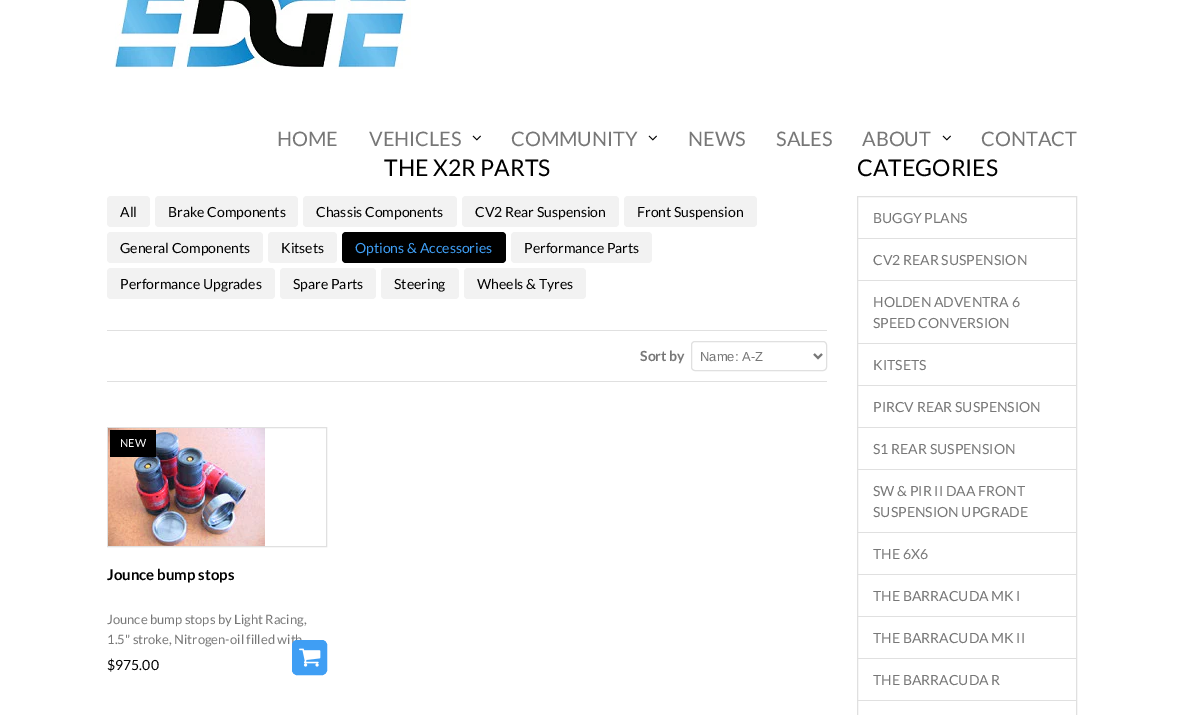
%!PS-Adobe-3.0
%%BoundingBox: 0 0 1184 715
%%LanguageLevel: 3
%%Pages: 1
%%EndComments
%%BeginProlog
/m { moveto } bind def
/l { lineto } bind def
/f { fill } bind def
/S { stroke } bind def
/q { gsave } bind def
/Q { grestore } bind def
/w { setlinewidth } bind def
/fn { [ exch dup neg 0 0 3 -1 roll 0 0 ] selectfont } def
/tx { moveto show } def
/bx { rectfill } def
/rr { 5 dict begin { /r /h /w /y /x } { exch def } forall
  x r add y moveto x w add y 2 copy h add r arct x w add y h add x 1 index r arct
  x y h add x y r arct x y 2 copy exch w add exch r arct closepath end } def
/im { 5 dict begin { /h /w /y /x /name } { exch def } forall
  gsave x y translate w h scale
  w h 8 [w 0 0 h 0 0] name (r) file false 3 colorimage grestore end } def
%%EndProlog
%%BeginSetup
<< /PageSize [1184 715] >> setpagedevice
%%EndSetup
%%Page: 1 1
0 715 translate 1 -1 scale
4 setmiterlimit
1 setgray
0 0 1184 715 bx
(image0.raw) 114 0 297 69 im
/Lato-Regular 20 fn
0.467 setgray
(HOME) 277 146 tx
(VEHICLES) 369 146 tx
(image1.raw) 472 135 9 6 im
(COMMUNITY) 511 146 tx
(image1.raw) 648 135 9 6 im
(NEWS) 688 146 tx
(SALES) 776 146 tx
(ABOUT) 862 146 tx
(image1.raw) 942 135 9 6 im
(CONTACT) 981 146 tx
/Lato-Regular 23 fn
0 setgray
(THE X2R PARTS) 384 176 tx
0.949 setgray
107 196 43 31 4 rr f
/Lato-Regular 14 fn
0 setgray
(All) 120 217 tx
0.949 setgray
155 196 143 31 4 rr f
0 setgray
(Brake Components) 168 217 tx
0.949 setgray
303 196 154 31 4 rr f
0 setgray
(Chassis Components) 316 217 tx
0.949 setgray
462 196 157 31 4 rr f
0 setgray
(CV2 Rear Suspension) 475 217 tx
0.949 setgray
624 196 133 31 4 rr f
0 setgray
(Front Suspension) 637 217 tx
0.949 setgray
107 232 156 31 4 rr f
0 setgray
(General Components) 120 253 tx
0.949 setgray
268 232 69 31 4 rr f
0 setgray
(Kitsets) 281 253 tx
342 232 164 31 4 rr f
0.247 0.62 0.957 setrgbcolor
(Options & Accessories) 355 253 tx
0.949 setgray
511 232 141 31 4 rr f
0 setgray
(Performance Parts) 524 253 tx
0.949 setgray
107 268 168 31 4 rr f
0 setgray
(Performance Upgrades) 120 289 tx
0.949 setgray
280 268 96 31 4 rr f
0 setgray
(Spare Parts) 293 289 tx
0.949 setgray
381 268 78 31 4 rr f
0 setgray
(Steering) 394 289 tx
0.949 setgray
464 268 122 31 4 rr f
0 setgray
(Wheels & Tyres) 477 289 tx
0.878 setgray
107 330 720 1 bx
107 381 720 1 bx
/Lato-Bold 14 fn
0.467 setgray
(Sort by) 640 361 tx
0.878 setgray
691.5 341.5 135 29 3.5 rr S
0.467 setgray
2 w
814 354 m 818 358 l 822 354 l S
/LiberationSans-Regular 13 fn
(Name: A-Z) 700 361 tx
0.878 setgray
1 w
107.5 427.5 219 119 rectstroke
(image2.raw) 108 428 157 118 im
0 setgray
110 430 46 27 bx
/Lato-Regular 11 fn
1 setgray
(NEW) 120 447 tx
/Lato-Bold 15 fn
0 setgray
(Jounce bump stops) 107 580 tx
/Lato-Regular 13 fn
0.467 setgray
(Jounce bump stops by Light Racing,) 107 624 tx
(1.5" stroke, Nitrogen-oil filled with) 107 644 tx
/Lato-Regular 14 fn
0 setgray
($975.00) 107 670 tx
0.247 0.62 0.957 setrgbcolor
292.5 640.5 34 34 4.5 rr q f Q
S
(image3.raw) 299 648 22 19 im
/Lato-Regular 23 fn
0 setgray
(CATEGORIES) 857 176 tx
0.878 setgray
857.5 196.5 219 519 rectstroke
/Lato-Regular 14 fn
0.467 setgray
(BUGGY PLANS) 873 223 tx
0.878 setgray
858 238 218 1 bx
0.467 setgray
(CV2 REAR SUSPENSION) 873 265 tx
0.878 setgray
858 280 218 1 bx
0.467 setgray
(HOLDEN ADVENTRA 6) 873 307 tx
(SPEED CONVERSION) 873 328 tx
0.878 setgray
858 343 218 1 bx
0.467 setgray
(KITSETS) 873 370 tx
0.878 setgray
858 385 218 1 bx
0.467 setgray
(PIRCV REAR SUSPENSION) 873 412 tx
0.878 setgray
858 427 218 1 bx
0.467 setgray
(S1 REAR SUSPENSION) 873 454 tx
0.878 setgray
858 469 218 1 bx
0.467 setgray
(SW & PIR II DAA FRONT) 873 496 tx
(SUSPENSION UPGRADE) 873 517 tx
0.878 setgray
858 532 218 1 bx
0.467 setgray
(THE 6X6) 873 559 tx
0.878 setgray
858 574 218 1 bx
0.467 setgray
(THE BARRACUDA MK I) 873 601 tx
0.878 setgray
858 616 218 1 bx
0.467 setgray
(THE BARRACUDA MK II) 873 643 tx
0.878 setgray
858 658 218 1 bx
0.467 setgray
(THE BARRACUDA R) 873 685 tx
0.878 setgray
858 700 218 1 bx
showpage
%%EOF
